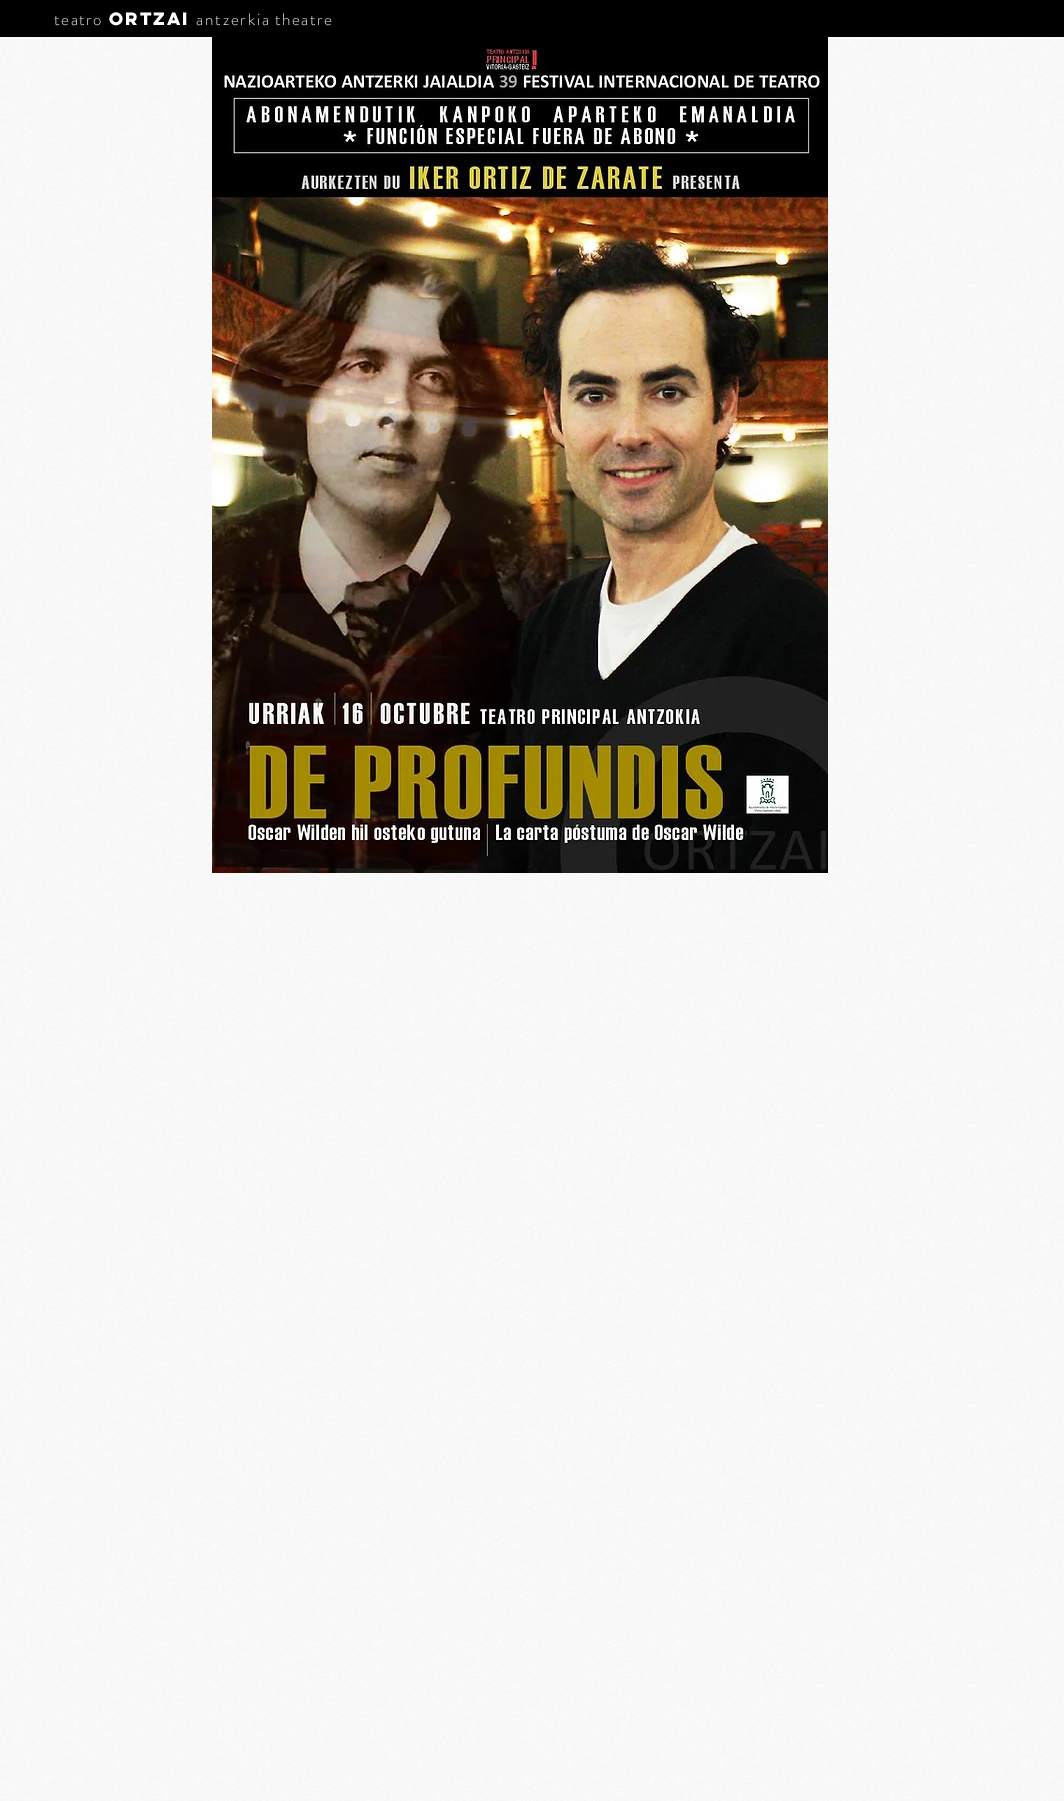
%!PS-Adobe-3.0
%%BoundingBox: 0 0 1064 1801
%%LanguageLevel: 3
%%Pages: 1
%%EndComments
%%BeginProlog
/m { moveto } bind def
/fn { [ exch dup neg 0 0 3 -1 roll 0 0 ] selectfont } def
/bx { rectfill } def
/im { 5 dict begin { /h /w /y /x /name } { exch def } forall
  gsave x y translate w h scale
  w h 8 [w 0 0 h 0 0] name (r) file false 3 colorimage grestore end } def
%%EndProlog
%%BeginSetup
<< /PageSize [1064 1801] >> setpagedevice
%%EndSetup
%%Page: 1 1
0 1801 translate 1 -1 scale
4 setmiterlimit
1 setgray
0 0 1064 1801 bx
0 setgray
0 0 1064 37 bx
/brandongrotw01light-Light 17 fn
0.91 0.902 0.902 setrgbcolor
54 25 m 1.5 0 (teatro) ashow
/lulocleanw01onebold-Bold 16 fn
1 setgray
109 25 m -1.5 0 (ORTZAI) ashow
/brandongrotw01light-Light 17 fn
0.91 0.902 0.902 setrgbcolor
196 25 m 1.75 0 (antzerkia) ashow
275 25 m 1.5 0 (theatre) ashow
(image1.raw) 0 37 1064 1764 im
(image0.raw) 212 37 616 836 im
showpage
%%EOF
